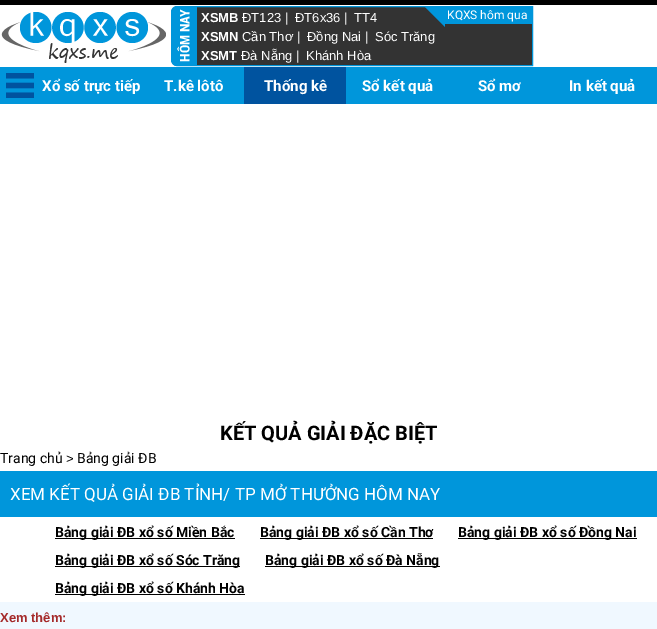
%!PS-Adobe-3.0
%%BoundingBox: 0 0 657 629
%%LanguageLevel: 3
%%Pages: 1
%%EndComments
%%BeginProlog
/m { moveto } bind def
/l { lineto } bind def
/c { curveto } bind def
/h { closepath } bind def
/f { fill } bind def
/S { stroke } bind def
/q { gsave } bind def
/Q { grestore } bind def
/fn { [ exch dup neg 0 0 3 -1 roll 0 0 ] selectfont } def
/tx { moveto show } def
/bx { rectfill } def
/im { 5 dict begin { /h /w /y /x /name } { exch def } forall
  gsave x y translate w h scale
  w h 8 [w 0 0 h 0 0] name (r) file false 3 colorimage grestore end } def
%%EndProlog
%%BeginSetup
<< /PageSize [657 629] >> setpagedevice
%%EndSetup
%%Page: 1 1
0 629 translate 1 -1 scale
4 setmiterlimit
0 setgray
0 0 657 629 bx
1 setgray
0 5 657 597 bx
(image0.raw) 1 12 165 51 im
0.2 setgray
177 6.5 m 532.5 6.5 l 532.5 65.5 l 177 65.5 l 174 65.5 171.5 63 171.5 60 c 171.5 12 l 171.5 9 174 6.5 177 6.5 c h q f Q
0 0.588 0.859 setrgbcolor
S
177 7 m 197 7 l 197 66 l 177 66 l 174 66 172 64 172 61 c 172 12 l 172 9 174 7 177 7 c h f
(image1.raw) 177 9 13 53 im
/LiberationSans-Bold 13 fn
1 setgray
(XSMB) 201 22 tx
/LiberationSans-Regular 13 fn
(ĐT123 |) 242 22 tx
(ĐT6x36 |) 295 22 tx
(TT4) 354 22 tx
0 0.588 0.859 setrgbcolor
445 7 87 17 bx
425 7 m 445 7 l 445 27 l h f
/Roboto-Regular 12 fn
1 setgray
(KQXS hôm qua) 447 19 tx
/LiberationSans-Bold 13 fn
(XSMN) 201 41 tx
/LiberationSans-Regular 13 fn
(Cần Thơ |) 242 41 tx
(Đồng Nai |) 307 41 tx
(Sóc Trăng) 375 41 tx
/LiberationSans-Bold 13 fn
(XSMT) 201 60 tx
/LiberationSans-Regular 13 fn
(Đà Nẵng |) 241 60 tx
(Khánh Hòa) 306 60 tx
0 0.588 0.859 setrgbcolor
0 67 657 37 bx
(image2.raw) 6 73 28 25 im
/Roboto-Bold 15 fn
1 setgray
(Xổ số trực tiếp) 42 91 tx
(T.kê lôtô) 164 91 tx
0 0.325 0.624 setrgbcolor
244 67 102 37 bx
1 setgray
(Thống kê) 264 91 tx
(Sổ kết quả) 362 91 tx
(Sổ mơ) 478 91 tx
(In kết quả) 569 91 tx
/Roboto-Bold 20 fn
0 setgray
(KẾT QUẢ GIẢI ĐẶC BIỆT) 220 440 tx
/Roboto-Regular 14 fn
(Trang chủ) 0 463 tx
/LiberationSans-Regular 13 fn
(>) 66 463 tx
/Roboto-Regular 14 fn
(Bảng giải ĐB) 77 463 tx
0 0.588 0.859 setrgbcolor
0 471 657 46 bx
/Roboto-Regular 17 fn
1 setgray
(XEM KẾT QUẢ GIẢI ĐB TỈNH/ TP MỞ THƯỞNG HÔM NAY) 10 500 tx
0 setgray
55 538 180 1 bx
/Roboto-Bold 14 fn
(Bảng giải ĐB xổ số Miền Bắc) 55 537 tx
260 538 173 1 bx
(Bảng giải ĐB xổ số Cần Thơ) 260 537 tx
458 538 179 1 bx
(Bảng giải ĐB xổ số Đồng Nai) 458 537 tx
55 566 185 1 bx
(Bảng giải ĐB xổ số Sóc Trăng) 55 565 tx
265 566 175 1 bx
(Bảng giải ĐB xổ số Đà Nẵng) 265 565 tx
55 594 190 1 bx
(Bảng giải ĐB xổ số Khánh Hòa) 55 593 tx
0.941 0.973 1 setrgbcolor
0 602 657 27 bx
/LiberationSans-Bold 13 fn
0.647 0.165 0.165 setrgbcolor
(Xem thêm:) 0 622 tx
showpage
%%EOF
